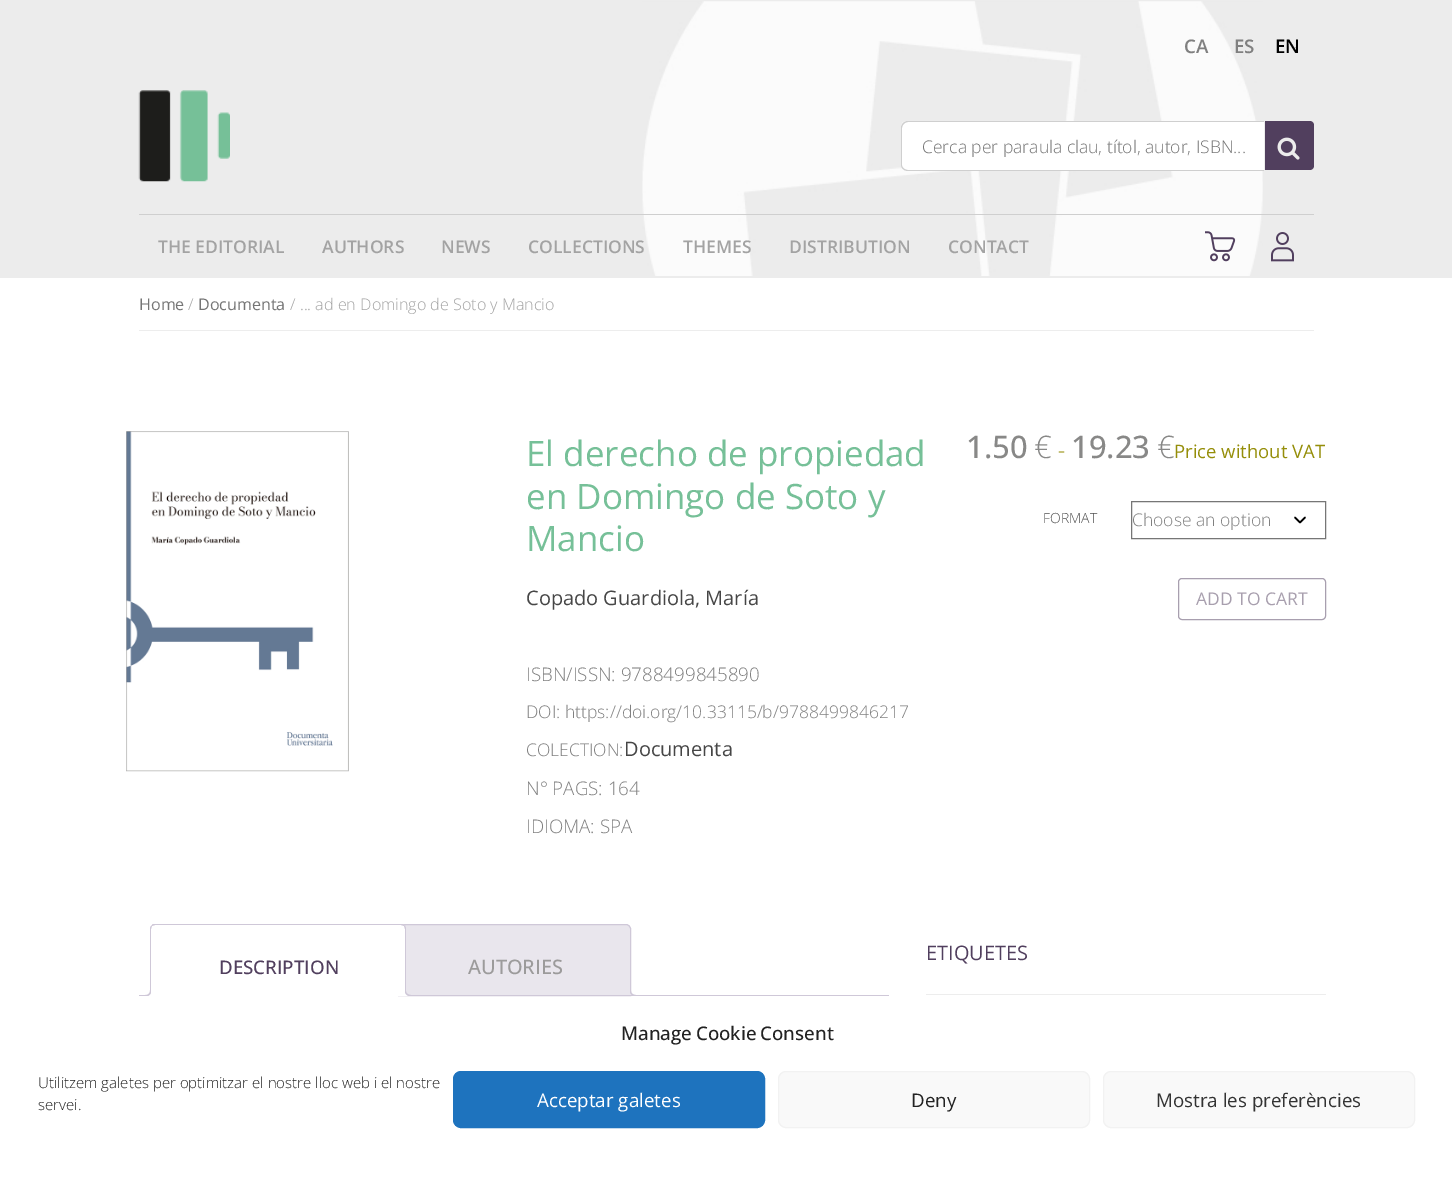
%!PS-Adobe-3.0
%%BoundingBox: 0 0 1452 1183
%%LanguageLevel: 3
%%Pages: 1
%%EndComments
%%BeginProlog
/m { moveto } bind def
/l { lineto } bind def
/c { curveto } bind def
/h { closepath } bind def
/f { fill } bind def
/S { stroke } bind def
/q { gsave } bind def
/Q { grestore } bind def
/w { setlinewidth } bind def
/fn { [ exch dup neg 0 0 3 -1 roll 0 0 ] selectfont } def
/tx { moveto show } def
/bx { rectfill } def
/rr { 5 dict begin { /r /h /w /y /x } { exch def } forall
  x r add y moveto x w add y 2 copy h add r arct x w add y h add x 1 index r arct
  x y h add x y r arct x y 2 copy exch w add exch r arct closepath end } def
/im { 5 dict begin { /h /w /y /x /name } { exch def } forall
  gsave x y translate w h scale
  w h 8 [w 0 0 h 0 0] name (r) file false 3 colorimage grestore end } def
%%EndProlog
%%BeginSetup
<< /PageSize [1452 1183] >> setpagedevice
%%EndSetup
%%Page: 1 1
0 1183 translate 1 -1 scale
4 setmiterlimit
1 setgray
0 0 1452 1183 bx
0.925 setgray
0 0 1452 278 bx
(image0.raw) 642 1 621 275 im
/OpenSans-SemiBold 18.75 fn
0.502 setgray
(CA) 1184 53 tx
(ES) 1234 53 tx
0 setgray
(EN) 1275 53 tx
(image1.raw) 138 90 92 92 im
1 setgray
907 121 m 1264 121 l 1264 171 l 907 171 l 903.5 171 901 168.5 901 165 c 901 127 l 901 123.5 903.5 121 907 121 c h f
0.812 setgray
908 121 m 1264 121 l 1264 171 l 908 171 l 904 171 901 168 901 165 c 901 128 l 901 124 904 121 908 121 c h 908 122 m 1264 122 l 1264 170 l 908 170 l 905 170 902 168 902 165 c 902 128 l 902 125 905 122 908 122 c h eofill
/OpenSans-Light 17.5 fn
0.459 setgray
(Cerca per paraula clau, títol, autor, ISBN...) 922 153 tx
0.318 0.247 0.369 setrgbcolor
1265 121 m 1310 121 l 1312 121 1314 123 1314 125 c 1314 166 l 1314 168 1312 170 1310 170 c 1265 170 l h f
(image2.raw) 1277 137 23 23 im
0.812 setgray
139 214 1175 1 bx
/OpenSans-SemiBold 17.5 fn
0.639 setgray
(THE EDITORIAL) 158 253 tx
(AUTHORS) 322 253 tx
(NEWS) 441 253 tx
(COLLECTIONS) 528 253 tx
(THEMES) 683 253 tx
(DISTRIBUTION) 789 253 tx
(CONTACT) 948 253 tx
(image3.raw) 1205 231 31 31 im
(image4.raw) 1271 232 23 30 im
0.929 setgray
139 330 1175 1 bx
/OpenSans-Regular 16.1 fn
0.459 setgray
(Home) 139 310 tx
/OpenSans-Light 16.1 fn
0.639 setgray
(/) 188 310 tx
/OpenSans-Regular 16.1 fn
0.459 setgray
(Documenta) 198 310 tx
/OpenSans-Light 16.1 fn
0.639 setgray
(/ ... ad en Domingo de Soto y Mancio) 290 310 tx
(image5.raw) 126 431 223 341 im
/OpenSans-Regular 35 fn
0.463 0.753 0.596 setrgbcolor
(El derecho de propiedad) 526 466 tx
(en Domingo de Soto y) 526 509 tx
(Mancio) 526 551 tx
/OpenSans-Regular 20 fn
0.275 setgray
(Copado Guardiola, María) 526 605 tx
/OpenSans-Light 18.75 fn
0.502 setgray
(ISBN/ISSN: 9788499845890) 526 681 tx
/OpenSans-Light 17.5 fn
(DOI: https://doi.org/10.33115/b/9788499846217) 526 718 tx
(COLECTION:) 526 756 tx
/OpenSans-Regular 20 fn
0.275 setgray
(Documenta) 624 756 tx
/OpenSans-Light 18.75 fn
0.502 setgray
(N° PAGS: 164) 526 795 tx
(IDIOMA: SPA) 526 833 tx
/OpenSans-Medium 31 fn
0.533 0.533 0.529 setrgbcolor
(1.50) 966 458 tx
/OpenSans-Light 31 fn
(€) 1034 458 tx
/OpenSans-Light 22 fn
0.584 0.557 0.035 setrgbcolor
(-) 1058 458 tx
/OpenSans-Medium 31 fn
0.533 0.533 0.529 setrgbcolor
(19.23) 1071 458 tx
/OpenSans-Light 31 fn
(€) 1157 458 tx
/OpenSans-Regular 18.5 fn
0.584 0.557 0.035 setrgbcolor
(Price without VAT) 1174 458 tx
/OpenSans-Light 14 fn
0.314 setgray
(FORMAT) 1043 523 tx
0 setgray
1.7 w
1 setlinecap
1 setlinejoin
1295 517.5 m 1300 522.5 l 1305 517.5 l S
0.463 setgray
1 w
0 setlinecap
0 setlinejoin
1131.5 501.5 194 37 rectstroke
/OpenSans-Light 17.5 fn
0.502 setgray
(Choose an option) 1132 526 tx
0.659 0.624 0.686 setrgbcolor
1178.5 578.5 147 41 3.5 rr S
/OpenSans-Regular 17.5 fn
0.659 0.624 0.682 setrgbcolor
(ADD TO CART) 1196 605 tx
0.929 setgray
926 994 400 1 bx
/OpenSans-Regular 20 fn
0.318 0.247 0.369 setrgbcolor
(ETIQUETES) 926 960 tx
0.914 0.902 0.929 setrgbcolor
403 924.5 m 626 924.5 l 628.5 924.5 630.5 926.5 630.5 929 c 630.5 995.5 l 398.5 995.5 l 398.5 929 l 398.5 926.5 400.5 924.5 403 924.5 c h q f Q
0.812 0.784 0.847 setrgbcolor
S
q
139 924 750 72 rectclip
0.914 0.902 0.929 setrgbcolor
628 993 m 628 997 630 999 634 999 c 634 996 l 632.5 996 631 994.5 630.5 993 c h f
Q
630 990 m 636 990 l 636 996 l 633 996 630 995 630 991 c h 631 990 m 636 990 l 636 995 l 634 995 631 994 631 991 c h eofill
139 995 750 1 bx
1 setgray
155 924 m 401 924 l 404 924 406 926 406 929 c 406 996 l 150 996 l 150 929 l 150 926 152 924 155 924 c h f
0.812 0.784 0.847 setrgbcolor
155 924 m 154 924 152 924 152 925 c 152 926 l 155 925 l 401 925 l 404 926 l 405 925 l 404 924 402 924 401 924 c h f
406 996 m 406 928 l 405 925 l 404 926 l 405 929 l 405 995 l h f
1 setgray
406 996 m 405 995 l 151 995 l 150 996 l h f
0.812 0.784 0.847 setrgbcolor
150 929 m 150 996 l 151 995 l 151 929 l 152 926 l 152 925 l 151 926 150 927 150 929 c h f
/OpenSans-Medium 18.75 fn
0.318 0.247 0.369 setrgbcolor
(DESCRIPTION) 219 974 tx
q
139 924 750 72 rectclip
1 setgray
148 996 m 148 999 l 152 999 154 997 154 993 c 151 993 l 150.5 994.5 149.5 995.5 148 996 c h f
Q
0.812 0.784 0.847 setrgbcolor
145 990 m 151 990 l 151 994.5 149.5 996 145 996 c h 145 990 m 150 990 l 150 993.5 148.5 995 145 995 c h eofill
q
139 924 750 72 rectclip
1 setgray
403 993 m 403 997 405 999 409 999 c 409 996 l 407.5 996 406 994.5 405.5 993 c h f
Q
405 990 m 411 990 l 411 996 l 408 996 405 995 405 991 c h 406 990 m 411 990 l 411 995 l 409 995 406 994 406 991 c h eofill
/OpenSans-Medium 20 fn
0.612 0.608 0.608 setrgbcolor
(AUTORIES) 468 974 tx
/OpenSans-Medium 18.75 fn
0.133 setgray
621 1040 m -1 0 32 (Manage Cookie Consent) widthshow
/OpenSans-Light 15 fn
(Utilitzem galetes per optimitzar el nostre lloc web i el nostre) 38 1088 tx
(servei.) 38 1110 tx
0.118 0.451 0.745 setrgbcolor
453.5 1071.5 311 56 7.5 rr q f Q
S
/OpenSans-Regular 18.75 fn
1 setgray
(Acceptar galetes) 537 1107 tx
0.976 setgray
778.5 1071.5 311 56 7.5 rr q f Q
0.949 setgray
S
0.133 setgray
(Deny) 911 1107 tx
0.976 setgray
1103.5 1071.5 311 56 7.5 rr q f Q
0.949 setgray
S
0.2 setgray
(Mostra les preferències) 1156 1107 tx
showpage
%%EOF
